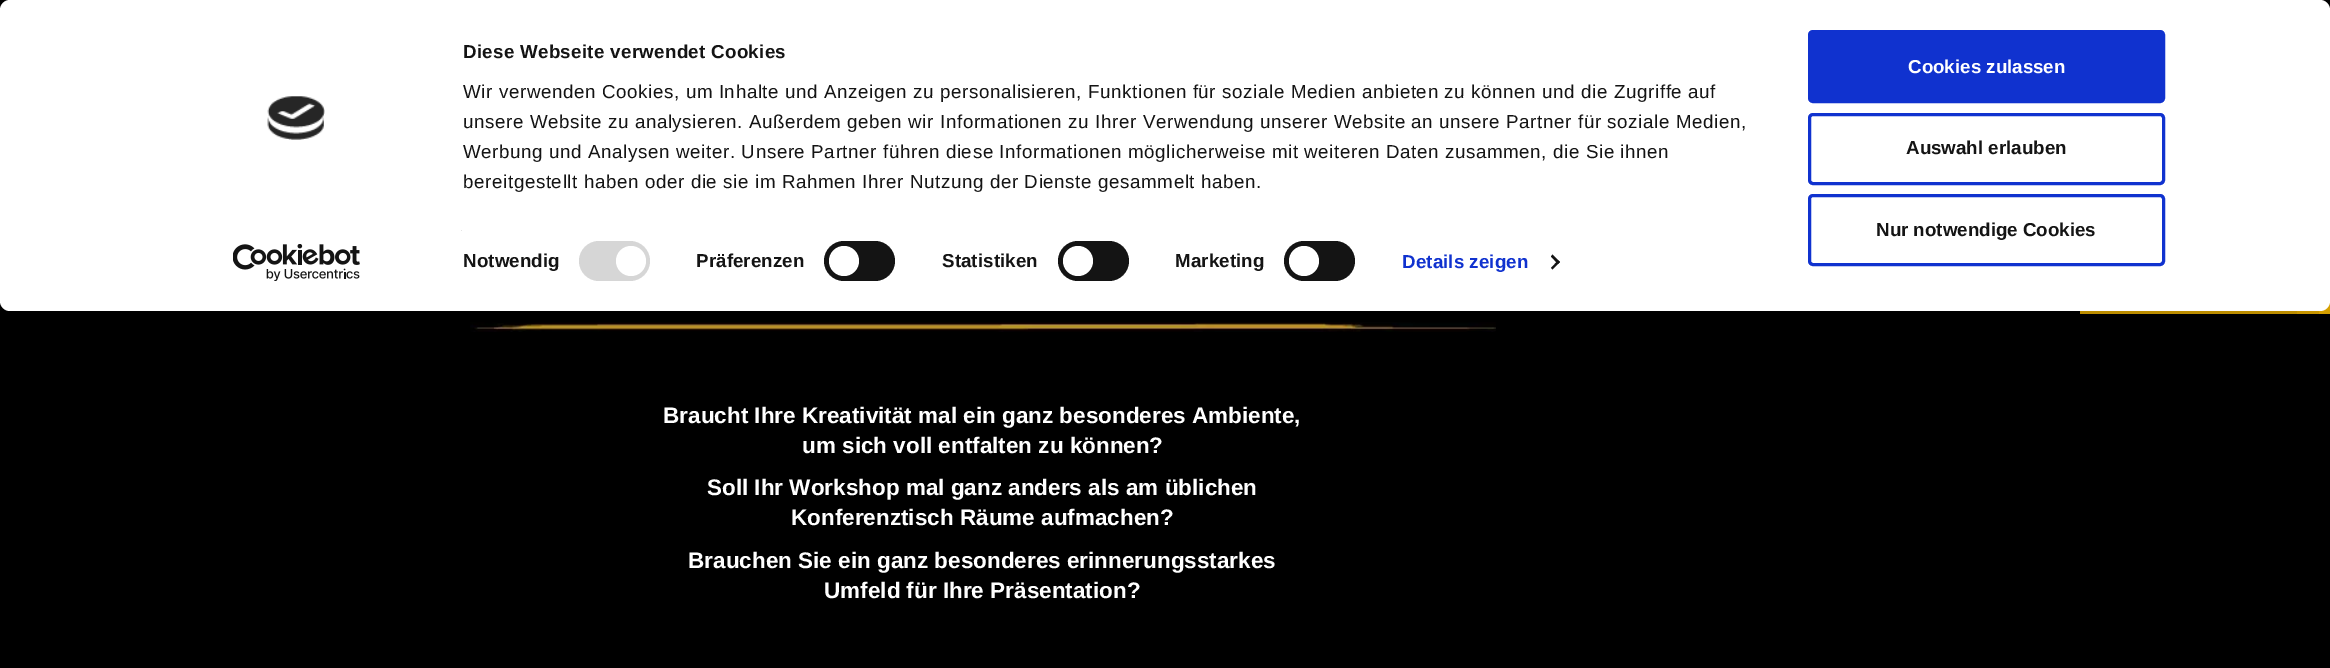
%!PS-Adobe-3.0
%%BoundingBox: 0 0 2330 668
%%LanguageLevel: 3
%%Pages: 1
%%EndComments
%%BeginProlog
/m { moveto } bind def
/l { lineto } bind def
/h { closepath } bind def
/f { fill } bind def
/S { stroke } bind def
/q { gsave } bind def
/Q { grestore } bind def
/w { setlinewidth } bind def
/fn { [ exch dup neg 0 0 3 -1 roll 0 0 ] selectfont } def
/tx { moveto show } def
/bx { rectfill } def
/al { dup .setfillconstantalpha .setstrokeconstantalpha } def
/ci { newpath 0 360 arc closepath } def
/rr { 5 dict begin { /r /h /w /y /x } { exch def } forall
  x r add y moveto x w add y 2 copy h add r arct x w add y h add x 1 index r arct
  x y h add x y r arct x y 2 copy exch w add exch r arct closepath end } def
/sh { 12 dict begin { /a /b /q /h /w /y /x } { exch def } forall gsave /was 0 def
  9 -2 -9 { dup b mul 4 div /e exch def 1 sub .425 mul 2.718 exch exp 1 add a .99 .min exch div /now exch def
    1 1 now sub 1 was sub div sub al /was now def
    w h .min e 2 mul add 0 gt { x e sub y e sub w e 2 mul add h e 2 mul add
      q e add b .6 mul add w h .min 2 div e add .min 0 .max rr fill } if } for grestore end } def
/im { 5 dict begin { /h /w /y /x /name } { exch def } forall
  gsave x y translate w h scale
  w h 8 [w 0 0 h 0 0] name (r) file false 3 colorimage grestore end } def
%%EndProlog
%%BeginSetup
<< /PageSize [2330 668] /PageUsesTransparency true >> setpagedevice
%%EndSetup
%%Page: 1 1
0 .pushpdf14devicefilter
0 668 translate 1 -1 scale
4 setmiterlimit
0 setgray
0 0 2330 668 bx
0.984 0.729 0 setrgbcolor
2080 301 250 13 bx
(image2.raw) 470 322 1026 10 im
0 setgray
0 38 2330 311 10 44 0.3 sh
1 setgray
0 0 2330 311 10 rr f
(image0.raw) 267 96 58 44 im
(image1.raw) 233 244 127 37 im
/LiberationSans-Bold 18.75 fn
0.078 setgray
463 58 m 0.3 0 (Diese Webseite verwendet Cookies) ashow
/LiberationSans-Regular 18.75 fn
463 98 m 0.62 0 (Wir verwenden Cookies, um Inhalte und Anzeigen zu personalisieren, Funktionen für soziale Medien anbieten zu können und die Zugriffe auf) ashow
463 128 m 0.62 0 (unsere Website zu analysieren. Außerdem geben wir Informationen zu Ihrer Verwendung unserer Website an unsere Partner für soziale Medien,) ashow
463 158 m 0.62 0 (Werbung und Analysen weiter. Unsere Partner führen diese Informationen möglicherweise mit weiteren Daten zusammen, die Sie ihnen) ashow
463 188 m 0.62 0 (bereitgestellt haben oder die sie im Rahmen Ihrer Nutzung der Dienste gesammelt haben.) ashow
0.898 setgray
461 230 1 1 bx
/LiberationSans-Bold 18.75 fn
0.078 setgray
463 267 m 0.1 0 (Notwendig) ashow
0.839 setgray
579 241 71 40 20 rr f
1 setgray
631 261 15 ci f
0.078 setgray
696 267 m 0.1 0 (Präferenzen) ashow
824 241 71 40 20 rr f
1 setgray
844 261 15 ci f
0.078 setgray
942 267 m 0.1 0 (Statistiken) ashow
1058 241 71 40 20 rr f
1 setgray
1078 261 15 ci f
0.078 setgray
1175 267 m 0.1 0 (Marketing) ashow
1284 241 71 40 20 rr f
1 setgray
1304 261 15 ci f
0.063 0.196 0.812 setrgbcolor
1402 268 m 0.1 0 (Details zeigen) ashow
0.078 setgray
1552.5 254.5 m 1560 262 l 1558 264 l 1551 256.5 l h f
1558 260.5 m 1560 262 l 1552.5 269.5 l 1551 268 l h f
0.063 0.196 0.812 setrgbcolor
1809.5 31.5 354 70 3.5 rr q f Q
3 w
S
1 setgray
(Cookies zulassen) 1908 73 tx
0.063 0.196 0.812 setrgbcolor
1809.5 114.5 354 69 3.5 rr S
0.078 setgray
(Auswahl erlauben) 1906 154 tx
0.063 0.196 0.812 setrgbcolor
1809.5 195.5 354 69 3.5 rr S
0.078 setgray
(Nur notwendige Cookies) 1876 236 tx
/LiberationSans-Bold 22.5 fn
1 setgray
(Braucht Ihre Kreativität mal ein ganz besonderes Ambiente,) 663 423 tx
(um sich voll entfalten zu können?) 802 453 tx
(Soll Ihr Workshop mal ganz anders als am üblichen) 707 495 tx
(Konferenztisch Räume aufmachen?) 791 525 tx
(Brauchen Sie ein ganz besonderes erinnerungsstarkes) 688 568 tx
(Umfeld für Ihre Präsentation?) 824 598 tx
.poppdf14devicefilter showpage
%%EOF
